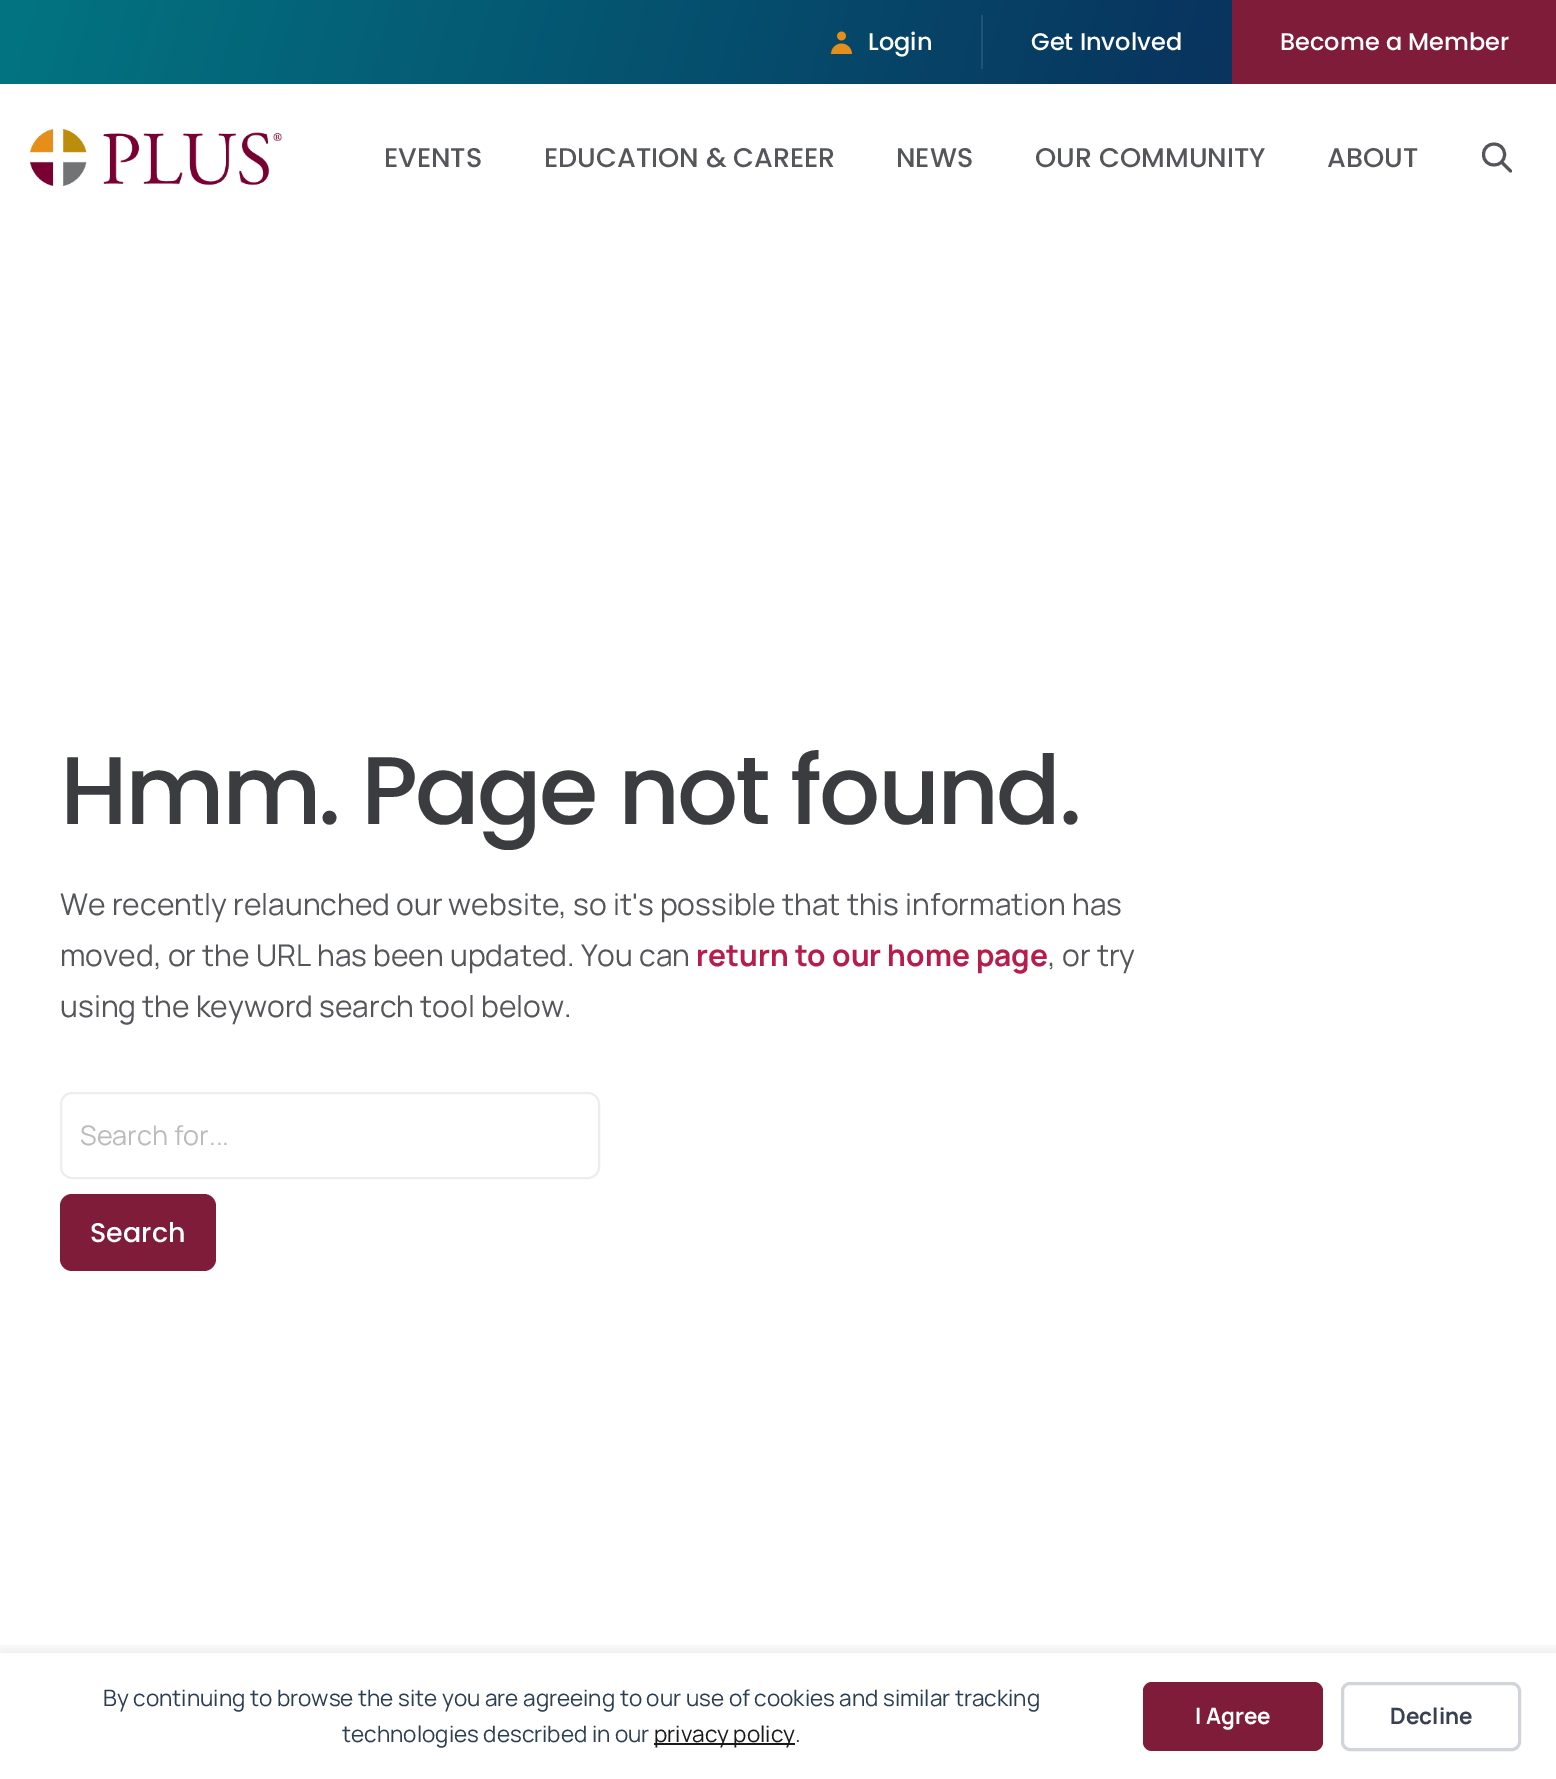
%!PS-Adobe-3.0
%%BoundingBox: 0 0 1556 1779
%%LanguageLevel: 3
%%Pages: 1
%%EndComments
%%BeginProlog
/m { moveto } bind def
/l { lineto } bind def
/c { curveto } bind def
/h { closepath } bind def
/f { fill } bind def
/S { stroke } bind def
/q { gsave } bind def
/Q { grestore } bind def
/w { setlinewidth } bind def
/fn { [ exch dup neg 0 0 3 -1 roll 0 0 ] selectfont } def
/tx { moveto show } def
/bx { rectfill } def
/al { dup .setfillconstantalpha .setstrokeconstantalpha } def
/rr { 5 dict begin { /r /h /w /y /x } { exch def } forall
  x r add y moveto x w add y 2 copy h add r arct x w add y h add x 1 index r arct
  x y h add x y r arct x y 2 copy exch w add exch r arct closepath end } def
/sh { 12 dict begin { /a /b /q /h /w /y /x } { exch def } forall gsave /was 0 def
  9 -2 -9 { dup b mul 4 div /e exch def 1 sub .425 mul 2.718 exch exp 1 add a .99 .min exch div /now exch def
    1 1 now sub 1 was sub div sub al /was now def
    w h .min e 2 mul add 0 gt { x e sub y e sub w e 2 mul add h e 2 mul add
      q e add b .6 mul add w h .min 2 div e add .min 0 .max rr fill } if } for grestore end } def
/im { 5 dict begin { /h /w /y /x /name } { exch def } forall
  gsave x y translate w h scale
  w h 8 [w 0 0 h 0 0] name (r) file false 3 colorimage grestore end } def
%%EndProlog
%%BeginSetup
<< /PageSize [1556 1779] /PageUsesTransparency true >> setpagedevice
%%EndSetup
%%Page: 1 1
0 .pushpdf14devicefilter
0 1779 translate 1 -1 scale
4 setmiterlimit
1 setgray
0 0 1556 1779 bx
q 0 0 m 1232 0 l 1232 84 l 0 84 l h clip newpath
<< /ShadingType 2 /ColorSpace /DeviceRGB /Coords [48 -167 1509 251] /Extend [true true] /Function << /FunctionType 3 /Domain [0 1] /Functions [<< /FunctionType 2 /Domain [0 1] /C0 [0.008 0.459 0.51] /C1 [0.031 0.204 0.369] /N 1 >> << /FunctionType 2 /Domain [0 1] /C0 [0.031 0.204 0.369] /C1 [0.031 0.204 0.369] /N 1 >>] /Bounds [0.78] /Encode [0 1 0 1] >> >> shfill Q
(image0.raw) 831 31 21 23 im
0.125 0.329 0.455 setrgbcolor
981 15 2 54 bx
/Poppins-Medium 24 fn
1 setgray
(Login) 868 50 tx
(Get Involved) 1031 50 tx
0.498 0.11 0.227 setrgbcolor
1232 0 324 84 bx
1 setgray
(Become a Member) 1280 50 tx
(image1.raw) 30 129 252 57 im
/Poppins-Medium 27 fn
0.333 0.337 0.353 setrgbcolor
(EVENTS) 384 167 tx
(EDUCATION & CAREER) 544 167 tx
(NEWS) 896 167 tx
(OUR COMMUNITY) 1035 167 tx
(ABOUT) 1327 167 tx
3 w
1 setlinecap
1 setlinejoin
1510.5 171 m 1501.5 162 l 1504.5 154.5 m 1504.5 168.5 1483.5 168.5 1483.5 154.5 c 1483.5 140.5 1504.5 140.5 1504.5 154.5 c h S
/Poppins-Medium 96 fn
0.231 0.235 0.247 setrgbcolor
60 824 m -2.9 0 (Hmm. Page not found.) ashow
/Manrope-Regular 30 fn
0.333 0.337 0.353 setrgbcolor
(We recently relaunched our website, so it's possible that this information has) 60 915 tx
(moved, or the URL has been updated. You can) 60 966 tx
/Manrope-Bold 30 fn
0.718 0.11 0.294 setrgbcolor
(return to our home page) 696 966 tx
/Manrope-Regular 30 fn
0.333 0.337 0.353 setrgbcolor
(, or try) 1048 966 tx
(using the keyword search tool below.) 60 1017 tx
0.929 setgray
2 w
0 setlinecap
0 setlinejoin
61 1093 538 85 11 rr S
/Manrope-Regular 27 fn
0.733 0.733 0.741 setrgbcolor
(Search for...) 80 1145 tx
0.498 0.11 0.227 setrgbcolor
60 1194 156 77 12 rr f
/Poppins-Medium 27 fn
1 setgray
(Search) 90 1242 tx
q
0 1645 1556 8 rectclip
0 setgray
0 1650 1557 126 0 7.5 0.08 sh
Q
/Manrope-Regular 22.5 fn
0.173 0.243 0.314 setrgbcolor
(By continuing to browse the site you are agreeing to our use of cookies and similar tracking) 103 1706 tx
(technologies described in our) 342 1742 tx
0.102 setgray
654 1743 141 2 bx
(privacy policy) 654 1742 tx
0.173 0.243 0.314 setrgbcolor
(.) 795 1742 tx
0.498 0.11 0.227 setrgbcolor
1143 1682 180 69 9 rr f
/Manrope-Bold 22.5 fn
1 setgray
(I Agree) 1195 1724 tx
0.82 0.835 0.859 setrgbcolor
3 w
1342.5 1683.5 177 66 7.5 rr S
0.216 0.255 0.318 setrgbcolor
(Decline) 1390 1724 tx
.poppdf14devicefilter showpage
%%EOF
